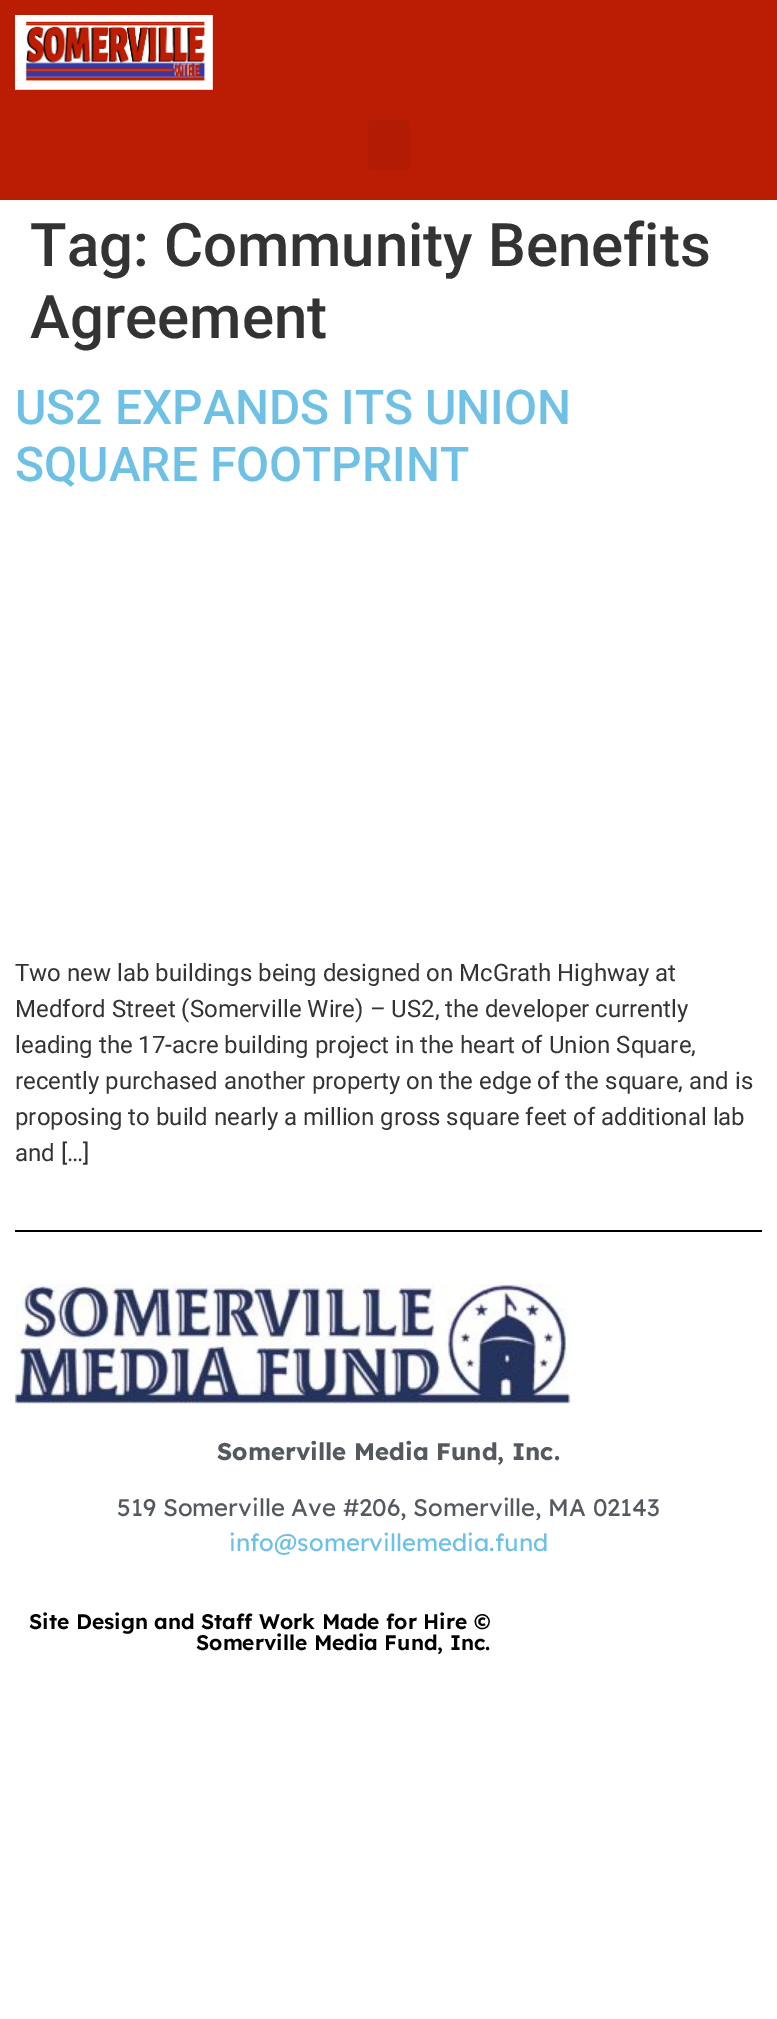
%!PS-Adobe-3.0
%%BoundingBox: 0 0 777 2019
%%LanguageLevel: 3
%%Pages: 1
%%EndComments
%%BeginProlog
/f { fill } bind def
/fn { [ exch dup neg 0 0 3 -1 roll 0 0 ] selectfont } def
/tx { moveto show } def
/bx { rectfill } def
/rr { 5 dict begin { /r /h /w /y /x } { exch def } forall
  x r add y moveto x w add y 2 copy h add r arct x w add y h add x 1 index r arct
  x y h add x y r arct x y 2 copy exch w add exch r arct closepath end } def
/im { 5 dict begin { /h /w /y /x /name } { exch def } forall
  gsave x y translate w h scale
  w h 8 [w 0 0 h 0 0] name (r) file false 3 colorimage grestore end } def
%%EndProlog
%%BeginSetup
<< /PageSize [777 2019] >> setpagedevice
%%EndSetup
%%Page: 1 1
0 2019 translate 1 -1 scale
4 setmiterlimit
1 setgray
0 0 777 2019 bx
0.733 0.11 0.016 setrgbcolor
0 0 777 200 bx
(image0.raw) 15 15 198 75 im
0.698 0.106 0.016 setrgbcolor
368 120 42 50 5 rr f
/Roboto-Medium 60 fn
0.2 setgray
(Tag: Community Benefits) 30 266 tx
(Agreement) 30 338 tx
/Roboto-Medium 48 fn
0.431 0.757 0.894 setrgbcolor
(US2 EXPANDS ITS UNION) 15 424 tx
(SQUARE FOOTPRINT) 15 481 tx
/Roboto-Regular 24 fn
0.2 setgray
(Two new lab buildings being designed on McGrath Highway at) 15 981 tx
(Medford Street \(Somerville Wire\) – US2, the developer currently) 15 1017 tx
(leading the 17-acre building project in the heart of Union Square,) 15 1053 tx
(recently purchased another property on the edge of the square, and is) 15 1089 tx
(proposing to build nearly a million gross square feet of additional lab) 15 1125 tx
(and […]) 15 1161 tx
0 setgray
15 1230 747 2 bx
(image1.raw) 15 1284 557 120 im
/LexendDeca-Bold 24 fn
0.329 0.349 0.373 setrgbcolor
(Somerville Media Fund, Inc.) 217 1460 tx
/LexendDeca-Regular 24 fn
(519 Somerville Ave #206, Somerville, MA 02143) 117 1516 tx
0.431 0.757 0.894 setrgbcolor
(info@somervillemedia.fund) 229 1551 tx
/LexendDeca-SemiBold 21 fn
0 setgray
(Site Design and Staff Work Made for Hire ©) 29 1629 tx
(Somerville Media Fund, Inc.) 196 1650 tx
showpage
%%EOF
